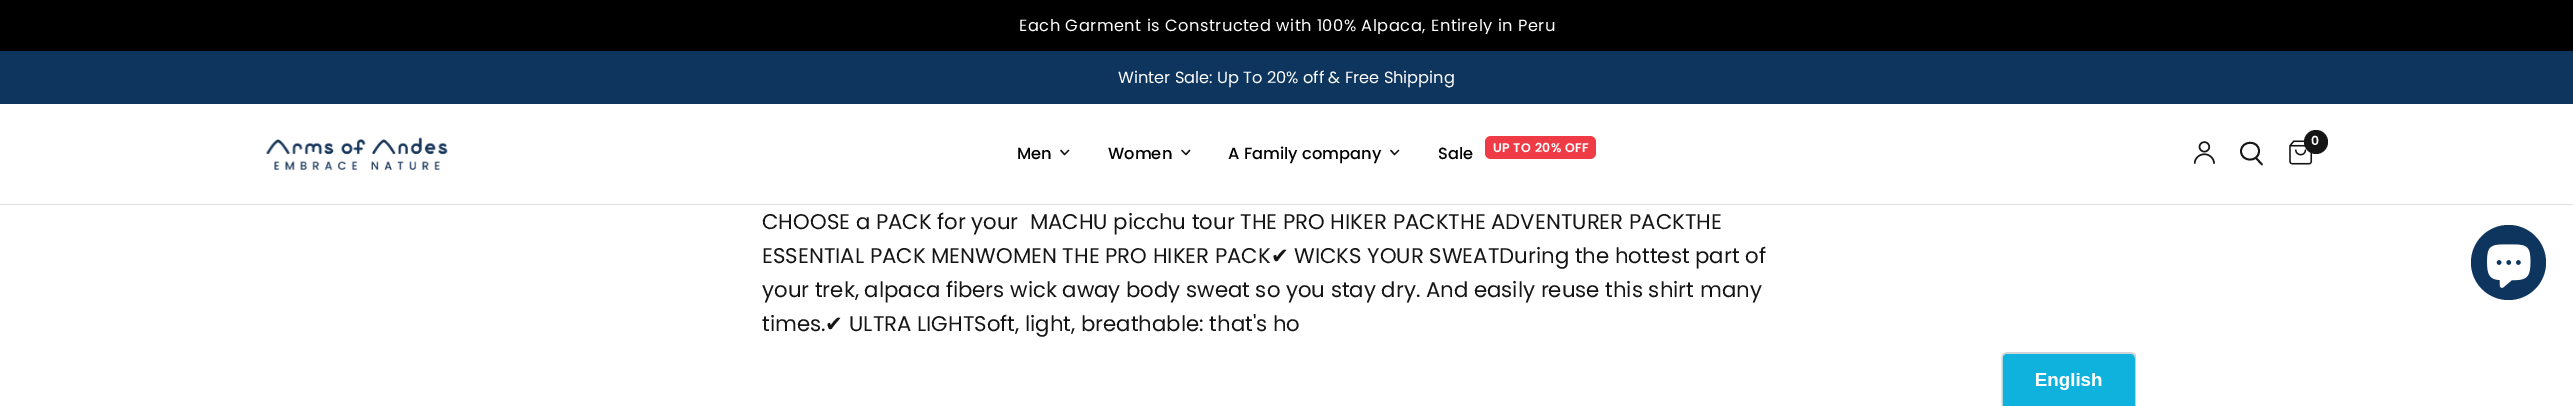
%!PS-Adobe-3.0
%%BoundingBox: 0 0 2573 406
%%LanguageLevel: 3
%%Pages: 1
%%EndComments
%%BeginProlog
/m { moveto } bind def
/l { lineto } bind def
/c { curveto } bind def
/h { closepath } bind def
/f { fill } bind def
/S { stroke } bind def
/q { gsave } bind def
/Q { grestore } bind def
/w { setlinewidth } bind def
/fn { [ exch dup neg 0 0 3 -1 roll 0 0 ] selectfont } def
/tx { moveto show } def
/bx { rectfill } def
/ci { newpath 0 360 arc closepath } def
/rr { 5 dict begin { /r /h /w /y /x } { exch def } forall
  x r add y moveto x w add y 2 copy h add r arct x w add y h add x 1 index r arct
  x y h add x y r arct x y 2 copy exch w add exch r arct closepath end } def
/im { 5 dict begin { /h /w /y /x /name } { exch def } forall
  gsave x y translate w h scale
  w h 8 [w 0 0 h 0 0] name (r) file false 3 colorimage grestore end } def
%%EndProlog
%%BeginSetup
<< /PageSize [2573 406] >> setpagedevice
%%EndSetup
%%Page: 1 1
0 406 translate 1 -1 scale
4 setmiterlimit
1 setgray
0 0 2573 406 bx
0 setgray
0 0 2573 51 bx
q
975 18 625 16 rectclip
/Poppins-Regular 16.25 fn
1 setgray
1019 31 m 0.5 0 (Each Garment is Constructed with 100% Alpaca, Entirely in Peru) ashow
Q
0.055 0.208 0.369 setrgbcolor
0 51 2573 53 bx
/Poppins-Regular 16.25 fn
1 setgray
(Winter Sale: Up To 20% off & Free Shipping) 1118 83 tx
0.886 setgray
0 204 2573 1 bx
(image0.raw) 2289 140 24 25 im
0.082 setgray
2316 142 12 ci f
/Poppins-SemiBold 12.5 fn
1 setgray
(0) 2311 145 tx
(image1.raw) 2194 141 21 23 im
0.082 setgray
1.8 w
1 setlinecap
1 setlinejoin
2256 158 m 2262 164.5 l 2259 151 m 2259 162.5 2241 162.5 2241 151 c 2241.5 140 2259 140 2259 151 c h S
(image2.raw) 266 137 182 33 im
/Poppins-Medium 16.25 fn
0 setgray
(Men) 1017 159 tx
0.082 setgray
1.4 w
1068.5 150.5 m 1064.5 154.5 l 1061 150.5 l S
0 setgray
(Women) 1108 159 tx
0.082 setgray
1189.5 150.5 m 1186 154.5 l 1182 150.5 l S
0 setgray
(A Family company) 1228 159 tx
0.082 setgray
1398.5 150.5 m 1394.5 154.5 l 1391 150.5 l S
0 setgray
(Sale) 1438 159 tx
0.933 0.231 0.271 setrgbcolor
1485 136 111 23 6 rr f
/Poppins-SemiBold 12.5 fn
1 setgray
1493 152 m 0.4 0 (UP TO 20% OFF) ashow
/Poppins-Regular 21.25 fn
0.082 setgray
(CHOOSE a PACK for your  MACHU picchu tour THE PRO HIKER PACKTHE ADVENTURER PACKTHE) 762 229 tx
(ESSENTIAL PACK MENWOMEN THE PRO HIKER PACK) 762 263 tx
/DejaVuSans-Regular 21.25 fn
(✔) 1271 263 tx
/Poppins-Regular 21.25 fn
(WICKS YOUR SWEATDuring the hottest part of) 1294 263 tx
(your trek, alpaca fibers wick away body sweat so you stay dry. And easily reuse this shirt many) 762 297 tx
(times.) 762 331 tx
/DejaVuSans-Regular 21.25 fn
(✔) 825 331 tx
/Poppins-Regular 21.25 fn
(ULTRA LIGHTSoft, light, breathable: that's ho) 849 331 tx
0.055 0.208 0.369 setrgbcolor
2508.5 262.5 37.5 ci f
(image3.raw) 2487 244 44 44 im
(image4.raw) 2001 352 135 54 im
showpage
%%EOF
